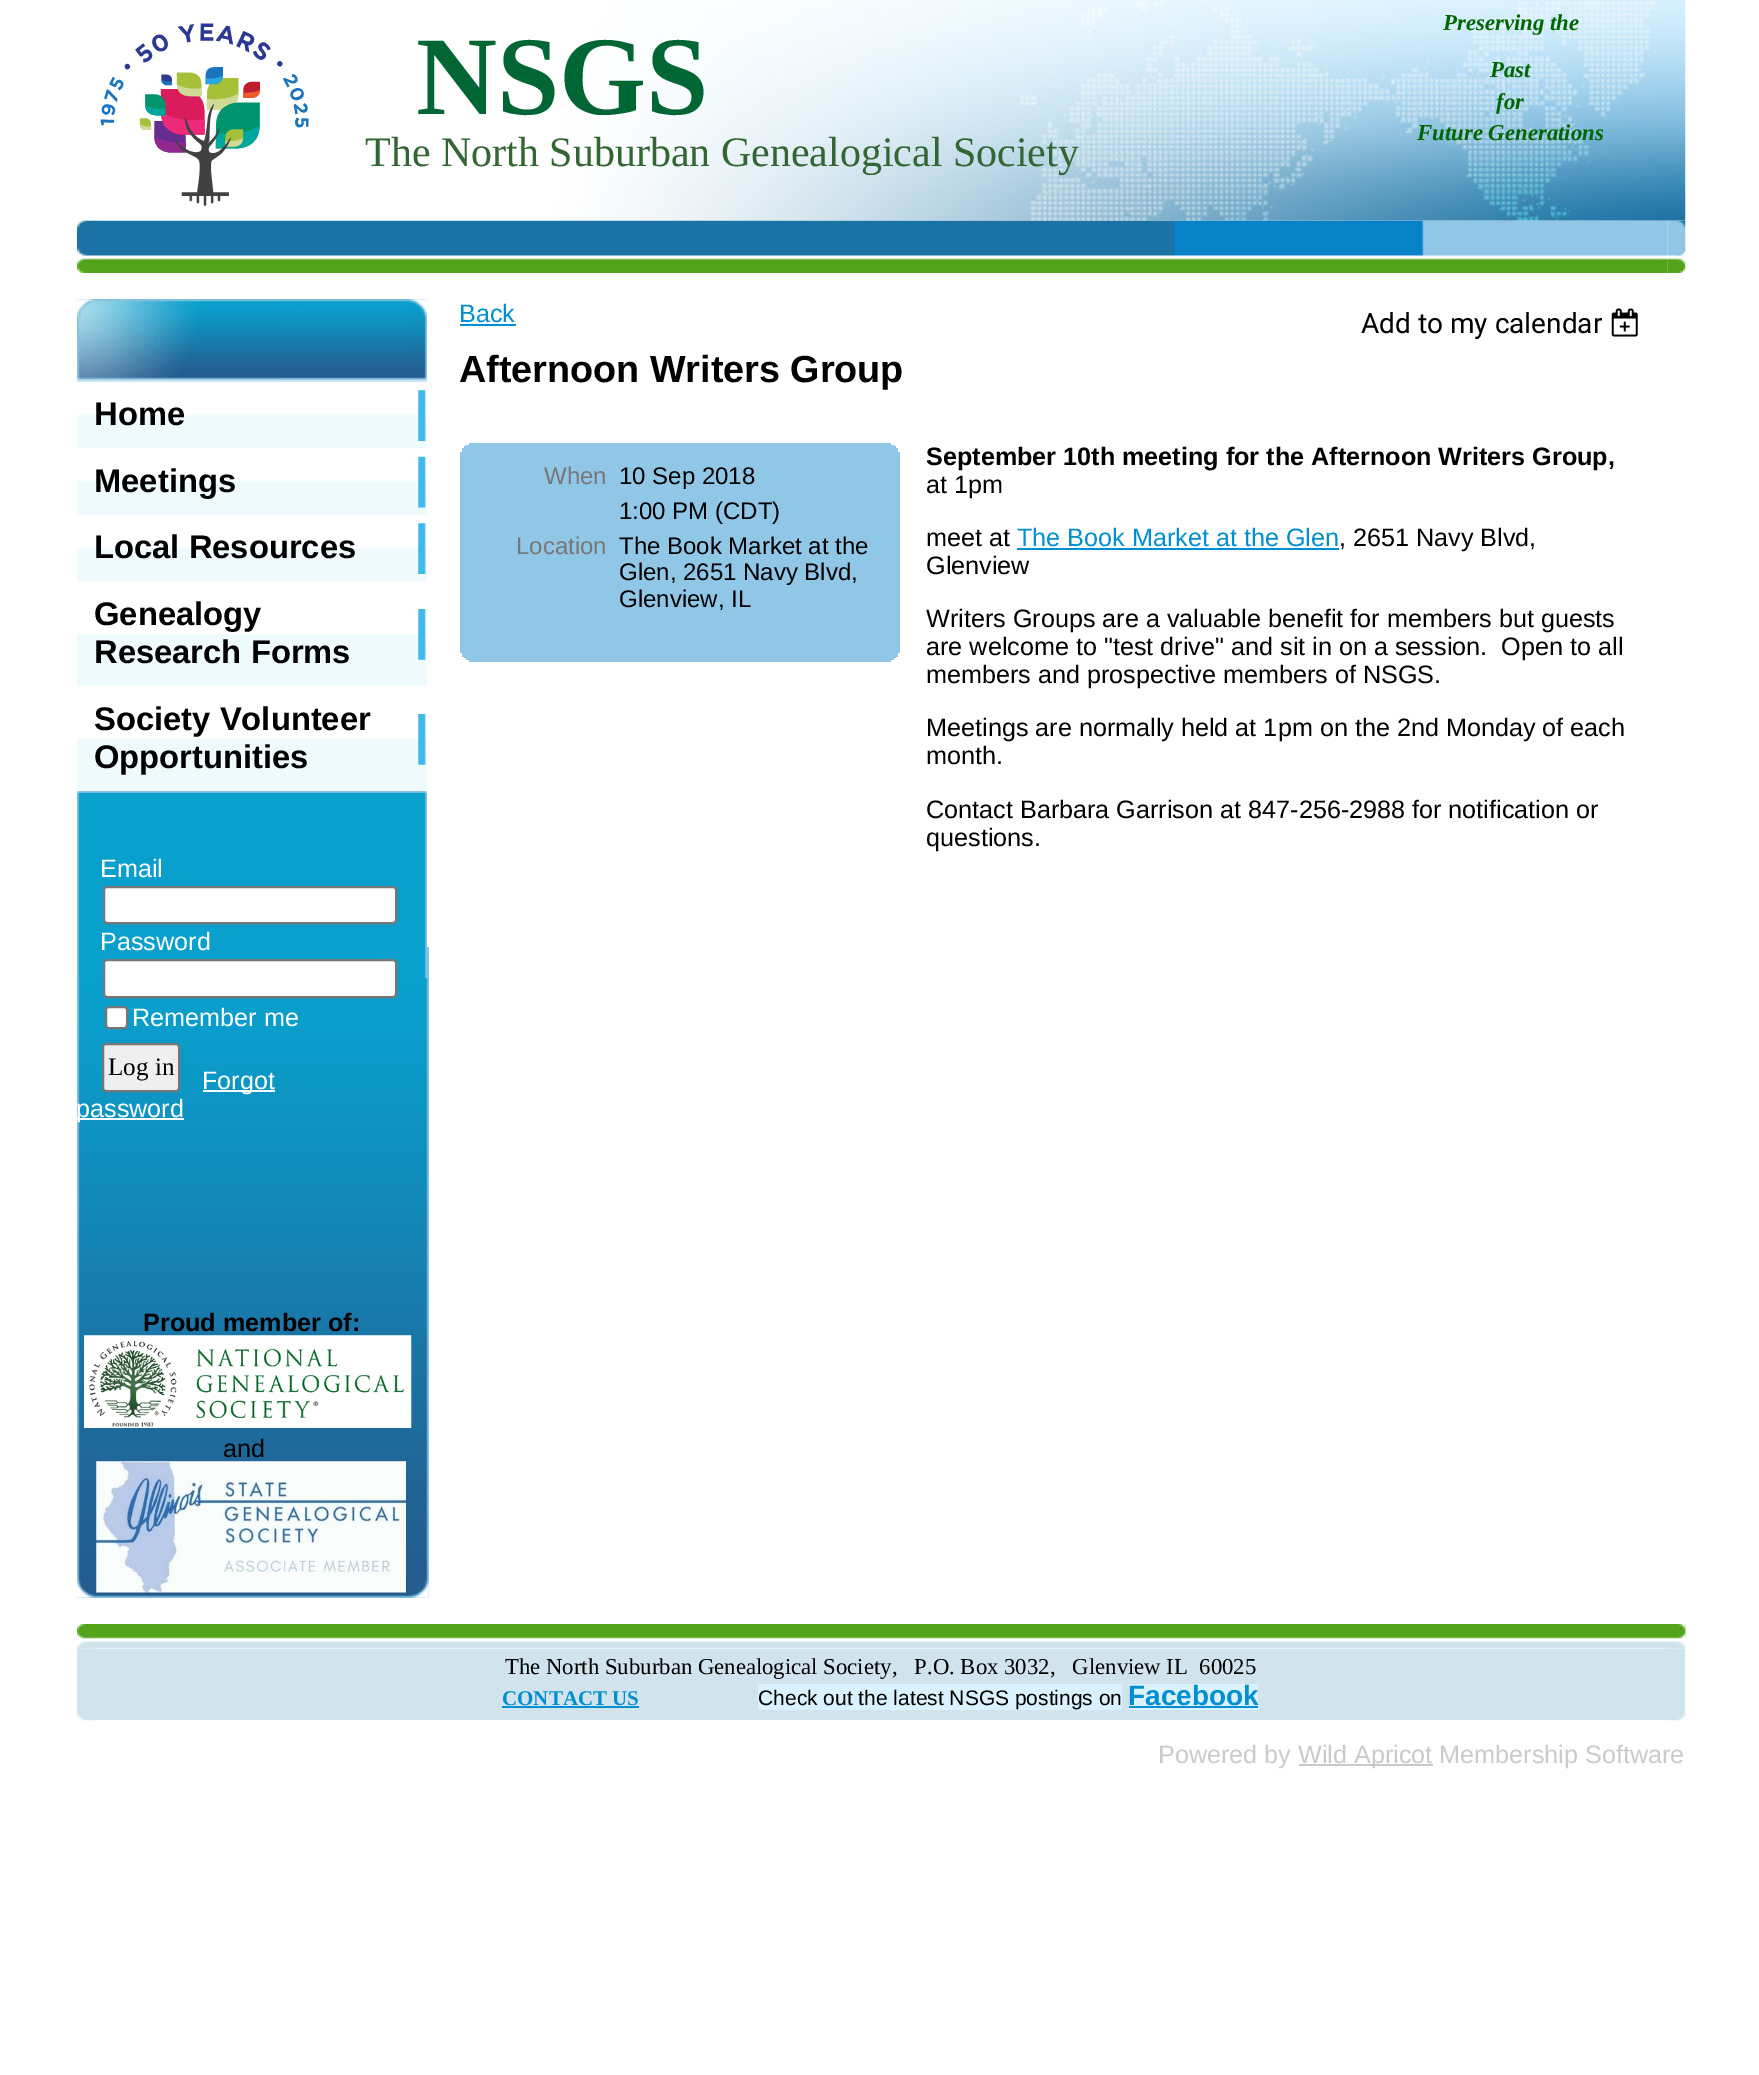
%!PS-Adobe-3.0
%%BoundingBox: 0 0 1759 2075
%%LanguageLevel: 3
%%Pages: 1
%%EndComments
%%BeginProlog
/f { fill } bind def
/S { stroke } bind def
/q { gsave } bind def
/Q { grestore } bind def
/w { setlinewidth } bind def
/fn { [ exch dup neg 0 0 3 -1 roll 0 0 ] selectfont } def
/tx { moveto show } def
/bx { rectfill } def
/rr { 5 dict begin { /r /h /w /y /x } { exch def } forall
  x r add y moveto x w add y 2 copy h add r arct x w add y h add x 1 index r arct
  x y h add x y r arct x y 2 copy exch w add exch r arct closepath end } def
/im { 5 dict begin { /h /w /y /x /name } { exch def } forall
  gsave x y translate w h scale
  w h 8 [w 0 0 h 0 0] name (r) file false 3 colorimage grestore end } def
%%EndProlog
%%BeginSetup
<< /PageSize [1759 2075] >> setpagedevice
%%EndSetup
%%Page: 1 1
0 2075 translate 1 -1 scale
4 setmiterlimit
1 setgray
0 0 1759 2075 bx
(image2.raw) 94 220 1574 53 im
(image3.raw) 77 220 20 53 im
(image4.raw) 1667 220 19 53 im
(image0.raw) 80 0 1606 221 im
(image1.raw) 100 23 209 183 im
/LiberationSerif-Bold 112 fn
0 0.4 0.2 setrgbcolor
(NSGS) 416 114 tx
/LiberationSerif-BoldItalic 22.75 fn
0 0.4 0 setrgbcolor
(Preserving the) 1443 30 tx
(Past) 1490 77 tx
(for) 1496 109 tx
(Future Generations) 1417 140 tx
/LiberationSerif-Regular 42 fn
0.2 0.4 0.2 setrgbcolor
(The North Suburban Genealogical Society) 365 166 tx
(image5.raw) 77 299 352 1299 im
(image6.raw) 77 978 352 620 im
(image7.raw) 77 299 350 81 im
(image8.raw) 77 791 350 2 im
(image9.raw) 77 299 203 81 im
(image10.raw) 409 299 18 81 im
0.937 0.98 0.992 setrgbcolor
77 416 350 32 bx
(image11.raw) 77 379 350 37 im
0.78 0.902 0.937 setrgbcolor
77 380 350 2 bx
(image12.raw) 418 390 8 51 im
/LiberationSans-Bold 32.75 fn
0 setgray
(Home) 94 425 tx
0.937 0.98 0.992 setrgbcolor
77 482 350 33 bx
(image13.raw) 77 448 350 34 im
(image14.raw) 418 456 8 52 im
0 setgray
(Meetings) 94 492 tx
0.937 0.98 0.992 setrgbcolor
77 549 350 32 bx
(image15.raw) 77 514 350 35 im
(image12.raw) 418 523 8 51 im
0 setgray
(Local Resources) 94 558 tx
0.937 0.98 0.992 setrgbcolor
77 634 350 52 bx
1 setgray
77 581 350 53 bx
(image16.raw) 418 609 8 51 im
0 setgray
(Genealogy) 94 625 tx
(Research Forms) 94 663 tx
0.937 0.98 0.992 setrgbcolor
77 739 350 52 bx
1 setgray
77 686 350 53 bx
(image16.raw) 418 714 8 51 im
0 setgray
(Society Volunteer) 94 730 tx
(Opportunities) 94 768 tx
/LiberationSans-Regular 25.2 fn
1 setgray
(Email) 100 877 tx
104 887 292 36 3 rr q f Q
0.463 setgray
2 w
S
1 setgray
(Password) 100 950 tx
104 960 292 37 3 rr q f Q
0.463 setgray
S
1 setgray
106 1007 21 21 3 rr q f Q
0.463 setgray
S
1 setgray
(Remember me) 132 1026 tx
0.937 setgray
103 1044 76 47 3 rr q f Q
0.463 setgray
S
/LiberationSerif-Regular 25.2 fn
0 setgray
(Log in) 108 1075 tx
1 setgray
203 1090 72 2 bx
/LiberationSans-Regular 25.2 fn
(Forgot) 202 1089 tx
77 1118 107 2 bx
(password) 76 1117 tx
/LiberationSans-Bold 25.2 fn
0 setgray
(Proud member of:) 143 1331 tx
(image17.raw) 84 1335 328 93 im
/LiberationSans-Regular 25.2 fn
(and) 223 1457 tx
(image18.raw) 96 1461 310 132 im
1 setgray
427 299 2 648 bx
0 0.561 0.82 setrgbcolor
(Back) 459 322 tx
460 324 56 2 bx
/Roboto-Regular 28 fn
0 setgray
(Add to my calendar) 1361 333 tx
(image19.raw) 1611 308 27 29 im
/LiberationSans-Bold 37.75 fn
(Afternoon Writers Group) 459 382 tx
0.569 0.78 0.902 setrgbcolor
469 443 422 2 bx
466 445 428 1 bx
464 446 432 2 bx
462 448 436 4 bx
460 452 440 201 bx
/LiberationSans-Regular 24 fn
0.467 setgray
(When) 544 484 tx
0 setgray
(10 Sep 2018) 619 484 tx
(1:00 PM \(CDT\)) 619 519 tx
0.467 setgray
(Location) 516 554 tx
0 setgray
(The Book Market at the) 619 554 tx
(Glen, 2651 Navy Blvd,) 619 580 tx
(Glenview, IL) 619 607 tx
0.569 0.78 0.902 setrgbcolor
462 653 436 4 bx
464 657 432 1 bx
466 658 428 2 bx
469 660 422 2 bx
/LiberationSans-Bold 25.2 fn
0 setgray
(September 10th meeting for the Afternoon Writers Group,) 926 465 tx
/LiberationSans-Regular 25.2 fn
(at 1pm) 926 493 tx
(meet at) 926 546 tx
0 0.561 0.82 setrgbcolor
(The Book Market at the Glen) 1017 546 tx
0 setgray
(, 2651 Navy Blvd,) 1339 546 tx
0 0.561 0.82 setrgbcolor
1017 548 322 2 bx
0 setgray
(Glenview) 926 574 tx
(Writers Groups are a valuable benefit for members but guests) 926 627 tx
(are welcome to "test drive" and sit in on a session.  Open to all) 926 655 tx
(members and prospective members of NSGS.) 926 683 tx
(Meetings are normally held at 1pm on the 2nd Monday of each) 926 736 tx
(month.) 926 764 tx
(Contact Barbara Garrison at 847-256-2988 for notification or) 926 818 tx
(questions.) 926 846 tx
(image20.raw) 77 1624 1609 25 im
(image21.raw) 77 1624 19 25 im
(image22.raw) 1668 1624 18 25 im
0.82 0.89 0.929 setrgbcolor
77 1649 1608 71 bx
(image23.raw) 1668 1713 18 8 im
(image24.raw) 77 1713 19 8 im
/LiberationSerif-Regular 22.75 fn
0 setgray
(The North Suburban Genealogical Society,   P.O. Box 3032,   Glenview IL  60025) 505 1674 tx
/LiberationSerif-Bold 21 fn
0 0.561 0.82 setrgbcolor
(CONTACT US) 502 1705 tx
502 1706 137 2 bx
0.855 0.949 1 setrgbcolor
758 1684 364 26 bx
/LiberationSans-Regular 21 fn
0 setgray
(Check out the latest NSGS postings on) 758 1705 tx
0.855 0.949 1 setrgbcolor
1129 1684 129 26 bx
/LiberationSans-Bold 28 fn
0 0.561 0.82 setrgbcolor
(Facebook) 1128 1705 tx
1129 1706 129 2 bx
/LiberationSans-Regular 25.2 fn
0.792 setgray
(Powered by) 1158 1763 tx
1299 1764 134 2 bx
(Wild Apricot Membership Software) 1298 1763 tx
showpage
%%EOF
